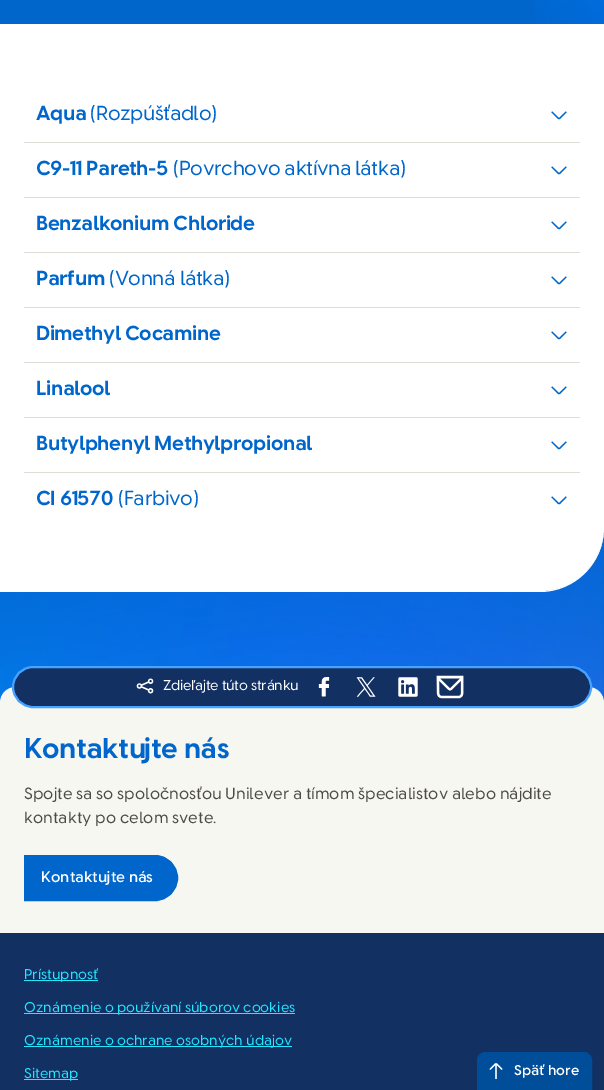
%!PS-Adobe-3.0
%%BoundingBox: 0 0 604 1090
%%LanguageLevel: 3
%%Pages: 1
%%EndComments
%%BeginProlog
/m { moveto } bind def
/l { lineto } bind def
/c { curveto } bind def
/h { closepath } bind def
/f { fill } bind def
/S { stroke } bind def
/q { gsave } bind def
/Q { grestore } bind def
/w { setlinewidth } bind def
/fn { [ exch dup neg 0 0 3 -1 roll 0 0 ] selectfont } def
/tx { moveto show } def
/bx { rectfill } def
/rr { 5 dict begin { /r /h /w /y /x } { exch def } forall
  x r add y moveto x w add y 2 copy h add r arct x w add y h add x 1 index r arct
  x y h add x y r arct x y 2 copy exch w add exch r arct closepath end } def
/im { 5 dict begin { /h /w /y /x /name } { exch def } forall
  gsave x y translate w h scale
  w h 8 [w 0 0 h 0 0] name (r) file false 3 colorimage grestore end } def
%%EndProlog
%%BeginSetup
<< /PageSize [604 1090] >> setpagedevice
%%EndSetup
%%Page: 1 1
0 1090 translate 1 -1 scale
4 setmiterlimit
0 0.4 0.8 setrgbcolor
0 0 604 1090 bx
(image0.raw) 534 0 70 24 im
(image8.raw) 0 527 604 176 im
1 setgray
0 591 m 0 592 l 540 592 l 575 592 604 563 604 528 c 604 527 l 604 562 575 591 540 591 c h f
0 24 m 604 24 l 604 527 l 604 562.5 575.5 591 540 591 c 0 591 l h f
/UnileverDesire-Bold 20 fn
0 0.4 0.8 setrgbcolor
36 120 m -0.4 0 (Aqua) ashow
/UnileverDesire-Regular 20 fn
90 120 m -0.4 0 (\(Rozpúšťadlo\)) ashow
(image1.raw) 551 111 16 9 im
0.871 0.871 0.843 setrgbcolor
24 142 556 1 bx
/UnileverDesire-Bold 20 fn
0 0.4 0.8 setrgbcolor
36 175 m -0.4 0 (C9-11 Pareth-5) ashow
/UnileverDesire-Regular 20 fn
173 175 m -0.4 0 (\(Povrchovo aktívna látka\)) ashow
(image1.raw) 551 166 16 9 im
0.871 0.871 0.843 setrgbcolor
24 197 556 1 bx
/UnileverDesire-Bold 20 fn
0 0.4 0.8 setrgbcolor
36 230 m -0.4 0 (Benzalkonium Chloride) ashow
(image1.raw) 551 221 16 9 im
0.871 0.871 0.843 setrgbcolor
24 252 556 1 bx
0 0.4 0.8 setrgbcolor
36 285 m -0.4 0 (Parfum) ashow
/UnileverDesire-Regular 20 fn
109 285 m -0.4 0 (\(Vonná látka\)) ashow
(image1.raw) 551 276 16 9 im
0.871 0.871 0.843 setrgbcolor
24 307 556 1 bx
/UnileverDesire-Bold 20 fn
0 0.4 0.8 setrgbcolor
36 340 m -0.4 0 (Dimethyl Cocamine) ashow
(image1.raw) 551 331 16 9 im
0.871 0.871 0.843 setrgbcolor
24 362 556 1 bx
0 0.4 0.8 setrgbcolor
36 395 m -0.4 0 (Linalool) ashow
(image1.raw) 551 386 16 9 im
0.871 0.871 0.843 setrgbcolor
24 417 556 1 bx
0 0.4 0.8 setrgbcolor
36 450 m -0.4 0 (Butylphenyl Methylpropional) ashow
(image1.raw) 551 441 16 9 im
0.871 0.871 0.843 setrgbcolor
24 472 556 1 bx
0 0.4 0.8 setrgbcolor
36 505 m -0.4 0 (CI 61570) ashow
/UnileverDesire-Regular 20 fn
118 505 m -0.4 0 (\(Farbivo\)) ashow
(image1.raw) 551 496 16 9 im
0.965 0.969 0.941 setrgbcolor
16 687 m 588 687 l 597 687 604 694 604 703 c 604 933 l 0 933 l 0 703 l 0 694 7 687 16 687 c h f
0.075 0.188 0.384 setrgbcolor
13 667 578 40 20 rr q f Q
0.278 0.639 1 setrgbcolor
2 w
S
(image2.raw) 136 678 18 16 im
/UnileverDesire-Regular 14 fn
1 setgray
163 690 m -0.25 0 (Zdieľajte túto stránku) ashow
(image3.raw) 318 677 12 20 im
(image4.raw) 356 677 20 20 im
(image5.raw) 398 677 20 20 im
(image6.raw) 436 675 28 24 im
/UnileverDesire-Bold 28 fn
0 0.4 0.8 setrgbcolor
24 758 m -0.5 0 (Kontaktujte nás) ashow
/UnileverDesire-Regular 16 fn
0.302 0.294 0.275 setrgbcolor
(Spojte sa so spoločnosťou Unilever a tímom špecialistov alebo nájdite) 24 799 tx
(kontakty po celom svete.) 24 823 tx
0 0.4 0.8 setrgbcolor
24.5 855.5 m 155 855.5 l 167.5 855.5 177.5 865.5 177.5 878 c 177.5 890.5 167.5 900.5 155 900.5 c 24.5 900.5 l h q f Q
1 w
S
/UnileverDesire-SemiBold 15 fn
1 setgray
(Kontaktujte nás) 41 882 tx
0.075 0.188 0.384 setrgbcolor
0 933 604 157 bx
0.137 0.906 1 setrgbcolor
24 980 74 1 bx
/UnileverDesire-Regular 14 fn
(Prístupnosť) 24 979 tx
24 1013 271 1 bx
(Oznámenie o používaní súborov cookies) 24 1012 tx
24 1046 268 1 bx
(Oznámenie o ochrane osobných údajov) 24 1045 tx
24 1079 54 1 bx
(Sitemap) 24 1078 tx
0 0.302 0.6 setrgbcolor
485 1052.5 m 584 1052.5 l 588 1052.5 591.5 1056 591.5 1060 c 591.5 1089.5 l 477.5 1089.5 l 477.5 1060 l 477.5 1056 481 1052.5 485 1052.5 c h q f Q
S
(image7.raw) 489 1063 14 16 im
/UnileverDesire-SemiBold 14 fn
1 setgray
(Späť hore) 514 1075 tx
showpage
%%EOF
